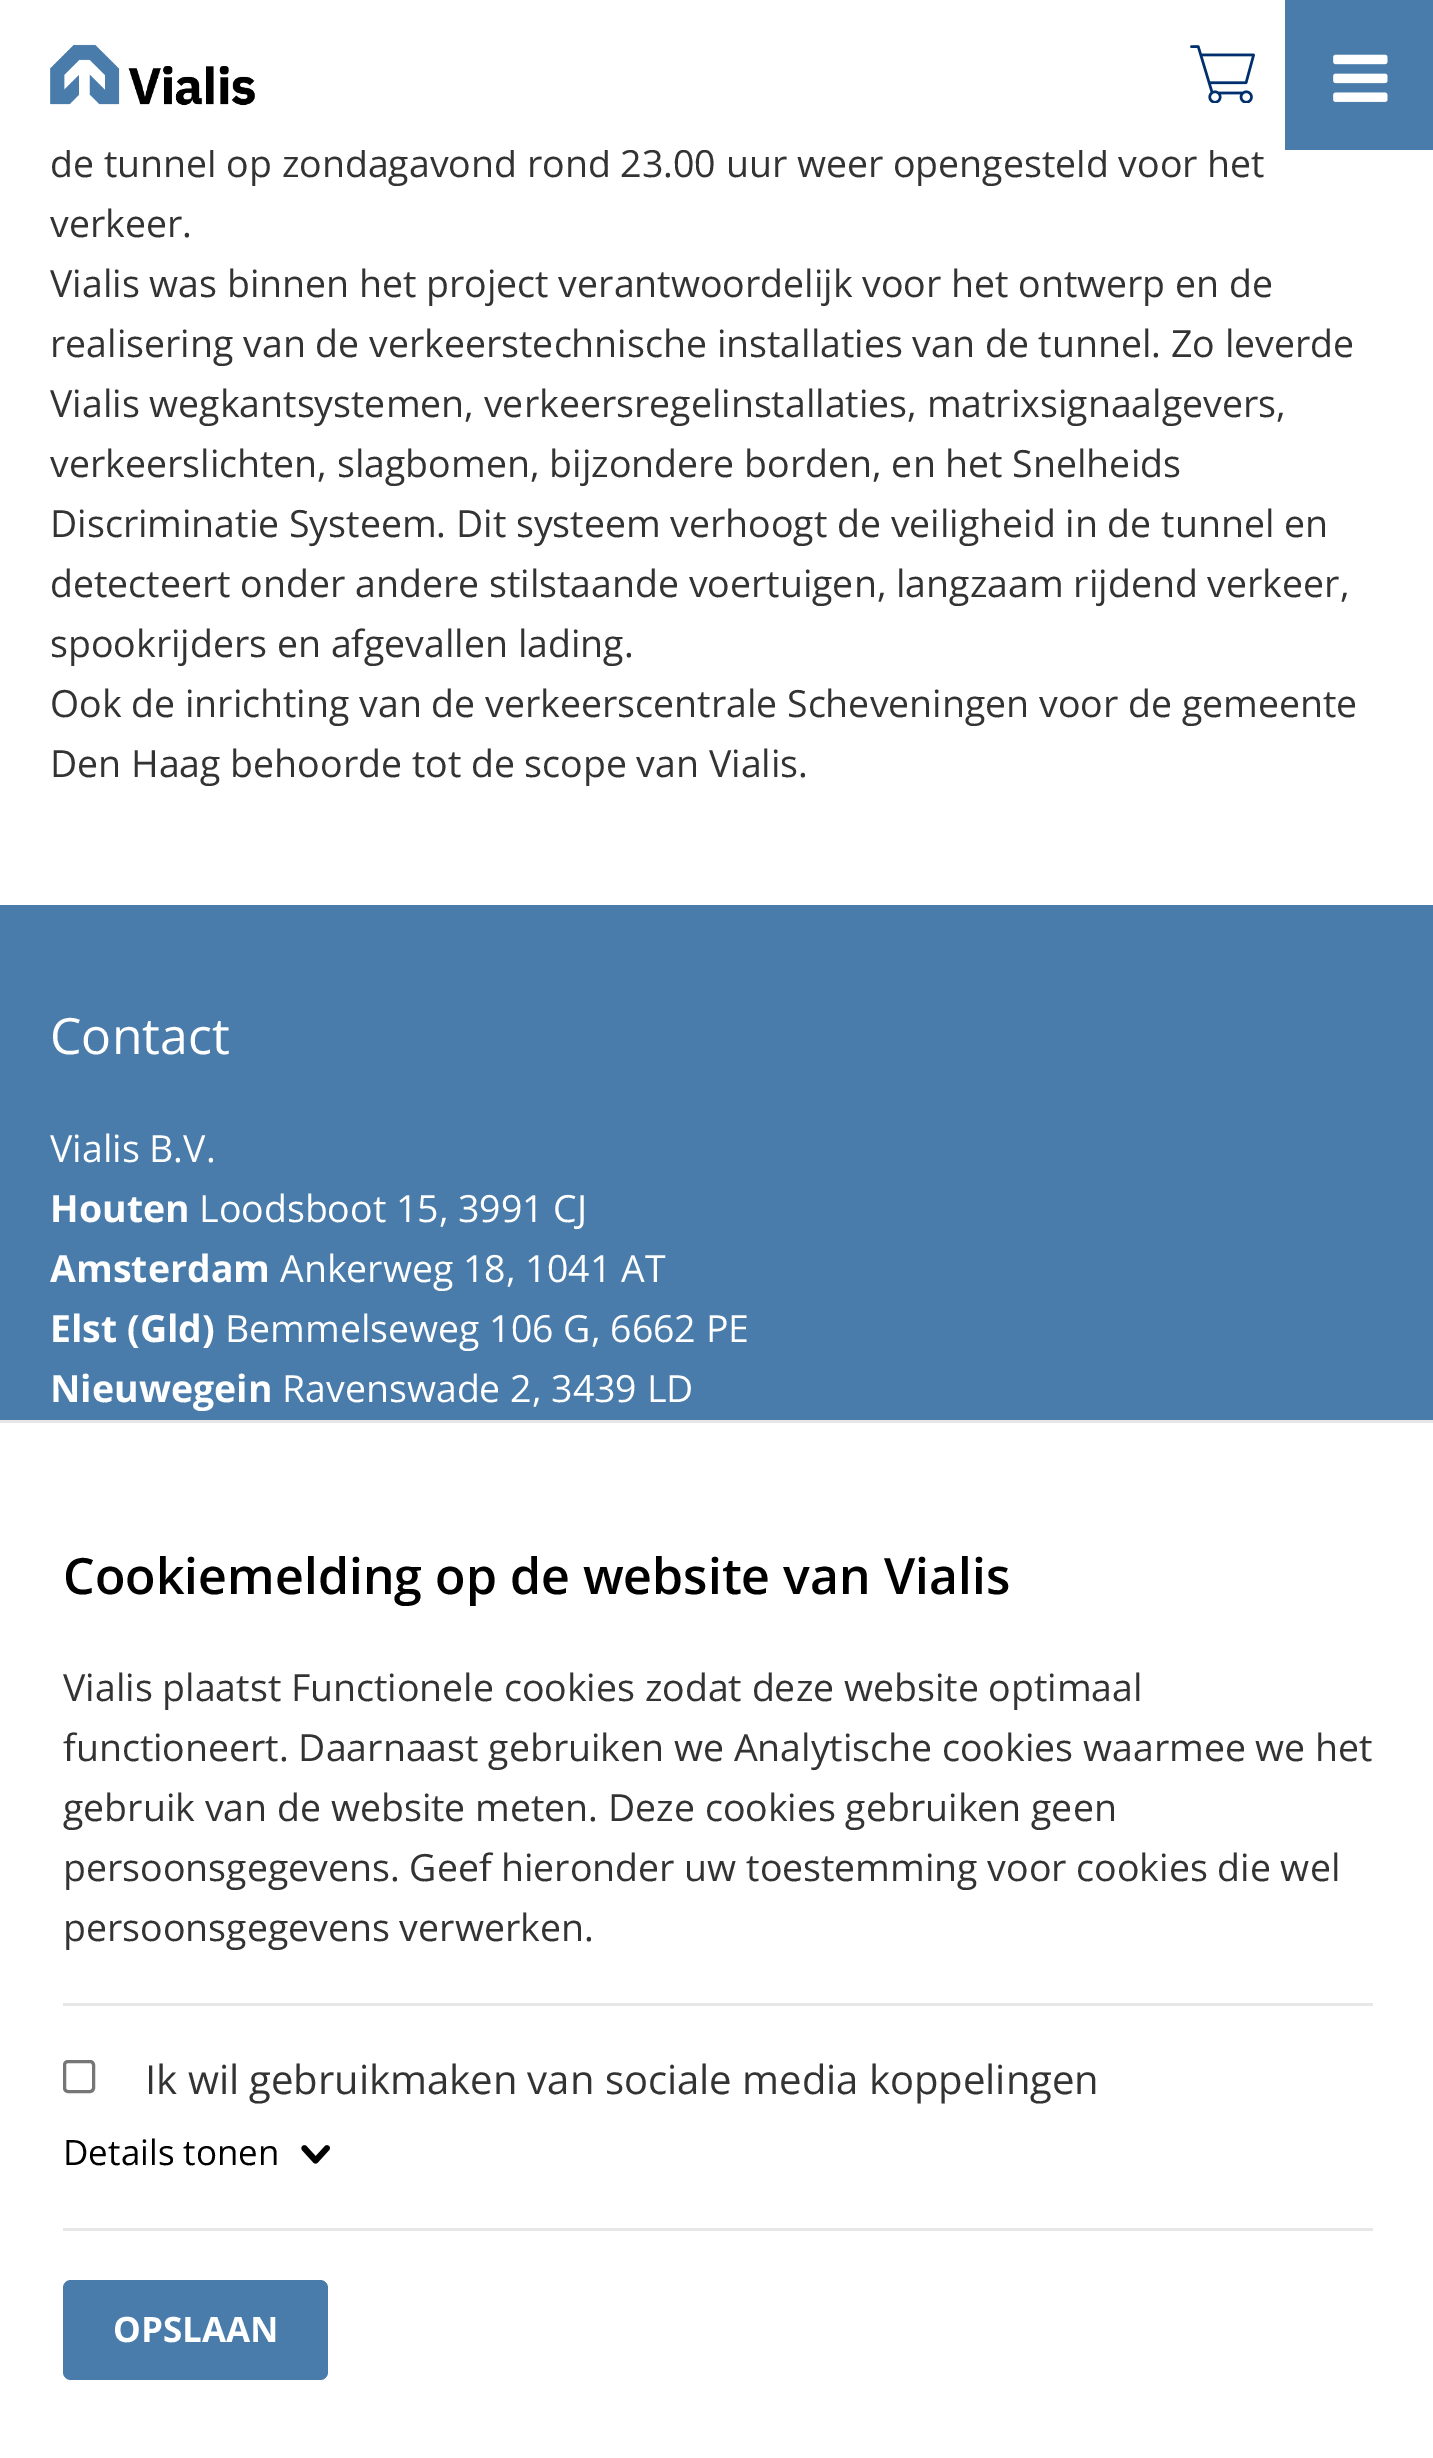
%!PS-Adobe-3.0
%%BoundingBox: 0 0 1433 2458
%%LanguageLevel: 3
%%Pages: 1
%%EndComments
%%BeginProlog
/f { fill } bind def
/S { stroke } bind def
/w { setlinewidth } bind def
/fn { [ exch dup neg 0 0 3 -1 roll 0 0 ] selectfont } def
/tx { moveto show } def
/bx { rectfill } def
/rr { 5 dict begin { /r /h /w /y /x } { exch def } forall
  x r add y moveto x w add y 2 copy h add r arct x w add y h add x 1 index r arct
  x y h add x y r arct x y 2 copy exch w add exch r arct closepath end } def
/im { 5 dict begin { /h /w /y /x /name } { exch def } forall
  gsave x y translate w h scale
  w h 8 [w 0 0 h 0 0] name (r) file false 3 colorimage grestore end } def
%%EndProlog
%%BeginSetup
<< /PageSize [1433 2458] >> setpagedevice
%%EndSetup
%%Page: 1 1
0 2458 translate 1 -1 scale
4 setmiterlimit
1 setgray
0 0 1433 2458 bx
/OpenSans-Regular 37.5 fn
0.2 setgray
(de tunnel op zondagavond rond 23.00 uur weer opengesteld voor het) 50 177 tx
1 setgray
66 148 1148 2 bx
(image0.raw) 50 44 205 62 im
(image1.raw) 1190 45 65 58 im
0.286 0.486 0.671 setrgbcolor
1285 0 148 150 bx
(image2.raw) 1333 54 55 48 im
0.2 setgray
(verkeer.) 50 237 tx
(Vialis was binnen het project verantwoordelijk voor het ontwerp en de) 50 297 tx
(realisering van de verkeerstechnische installaties van de tunnel. Zo leverde) 50 357 tx
(Vialis wegkantsystemen, verkeersregelinstallaties, matrixsignaalgevers,) 50 417 tx
(verkeerslichten, slagbomen, bijzondere borden, en het Snelheids) 50 477 tx
(Discriminatie Systeem. Dit systeem verhoogt de veiligheid in de tunnel en) 50 537 tx
(detecteert onder andere stilstaande voertuigen, langzaam rijdend verkeer,) 50 597 tx
(spookrijders en afgevallen lading.) 50 657 tx
(Ook de inrichting van de verkeerscentrale Scheveningen voor de gemeente) 50 717 tx
(Den Haag behoorde tot de scope van Vialis.) 50 777 tx
0.286 0.486 0.671 setrgbcolor
0 905 1433 515 bx
/OpenSans-Regular 50 fn
1 setgray
(Contact) 50 1054 tx
/OpenSans-Regular 37.5 fn
(Vialis B.V.) 50 1162 tx
/OpenSans-Bold 37.5 fn
(Houten) 50 1222 tx
/OpenSans-Regular 37.5 fn
(Loodsboot 15, 3991 CJ) 199 1222 tx
/OpenSans-Bold 37.5 fn
(Amsterdam) 50 1282 tx
/OpenSans-Regular 37.5 fn
(Ankerweg 18, 1041 AT) 280 1282 tx
/OpenSans-Bold 37.5 fn
(Elst \(Gld\)) 50 1342 tx
/OpenSans-Regular 37.5 fn
(Bemmelseweg 106 G, 6662 PE) 225 1342 tx
/OpenSans-Bold 37.5 fn
(Nieuwegein) 50 1402 tx
/OpenSans-Regular 37.5 fn
(Ravenswade 2, 3439 LD) 282 1402 tx
0.906 setgray
0 1420 1433 3 bx
/OpenSans-SemiBold 50 fn
0 setgray
(Cookiemelding op de website van Vialis) 63 1594 tx
/OpenSans-Regular 37.5 fn
0.2 setgray
(Vialis plaatst Functionele cookies zodat deze website optimaal) 63 1701 tx
(functioneert. Daarnaast gebruiken we Analytische cookies waarmee we het) 63 1761 tx
(gebruik van de website meten. Deze cookies gebruiken geen) 63 1821 tx
(persoonsgegevens. Geef hieronder uw toestemming voor cookies die wel) 63 1881 tx
(persoonsgegevens verwerken.) 63 1941 tx
0.906 setgray
63 2003 1310 3 bx
63 2228 1310 3 bx
0.463 setgray
3 w
64.5 2061.5 29 30 3.5 rr S
/OpenSans-Regular 40 fn
0.2 setgray
(Ik wil gebruikmaken van sociale media koppelingen) 145 2094 tx
/OpenSans-Regular 35 fn
0 setgray
(Details tonen) 63 2165 tx
(image3.raw) 301 2145 29 19 im
0.286 0.486 0.671 setrgbcolor
63 2280 265 100 8 rr f
/OpenSans-Bold 35 fn
1 setgray
(OPSLAAN) 113 2342 tx
showpage
%%EOF
